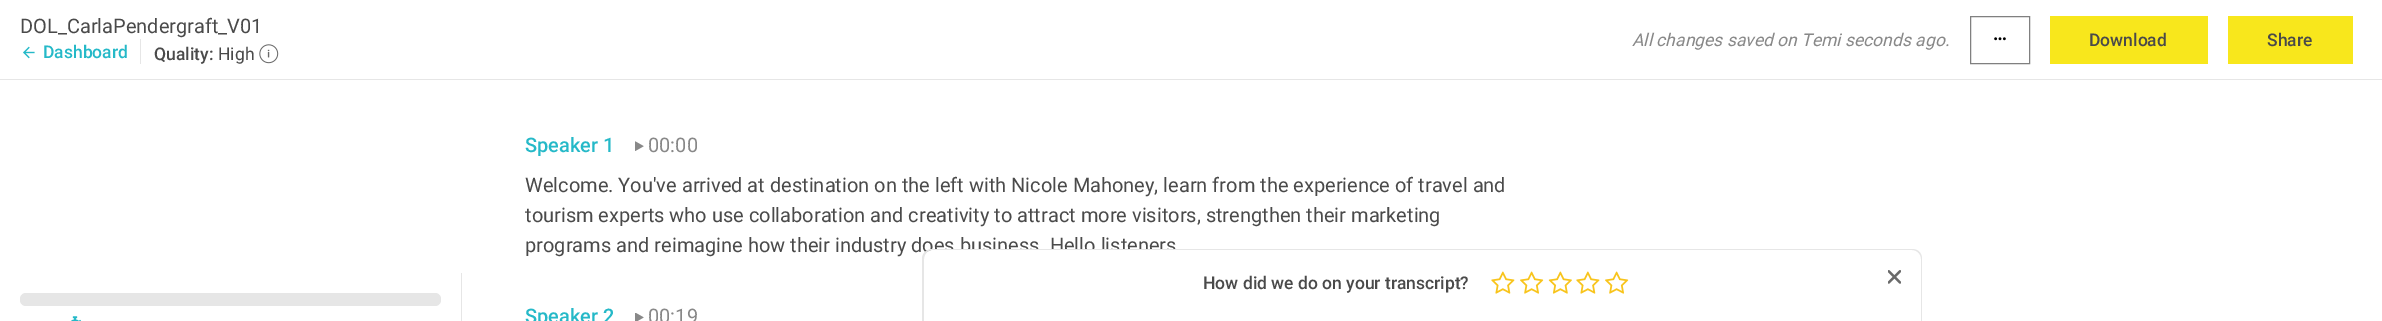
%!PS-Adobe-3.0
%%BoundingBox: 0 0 2382 321
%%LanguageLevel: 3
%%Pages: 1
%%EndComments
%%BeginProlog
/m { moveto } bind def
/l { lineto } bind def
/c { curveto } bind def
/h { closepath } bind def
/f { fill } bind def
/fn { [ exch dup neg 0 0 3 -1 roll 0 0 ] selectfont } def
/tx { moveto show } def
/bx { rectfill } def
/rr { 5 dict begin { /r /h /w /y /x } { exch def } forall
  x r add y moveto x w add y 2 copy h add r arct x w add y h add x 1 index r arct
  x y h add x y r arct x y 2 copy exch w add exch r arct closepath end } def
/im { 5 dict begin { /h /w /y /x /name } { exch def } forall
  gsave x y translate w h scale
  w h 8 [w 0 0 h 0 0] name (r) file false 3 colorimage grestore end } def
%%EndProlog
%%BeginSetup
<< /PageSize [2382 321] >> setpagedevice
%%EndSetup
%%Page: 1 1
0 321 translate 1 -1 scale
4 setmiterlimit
1 setgray
0 0 2382 321 bx
0.902 setgray
0 79 2382 1 bx
/Roboto-Regular 20 fn
0.29 setgray
(DOL_CarlaPendergraft_V01) 20 33 tx
(image0.raw) 23 46 12 13 im
/Roboto-Medium 17.5 fn
0.145 0.725 0.784 setrgbcolor
(Dashboard) 43 58 tx
0.902 setgray
140 39 1 25 bx
0.29 setgray
(Quality:) 154 60 tx
/Roboto-Regular 17.5 fn
(High) 218 60 tx
(image1.raw) 259 44 20 20 im
/Roboto-Italic 17.5 fn
0.533 setgray
(All changes saved on Temi seconds ago.) 1632 46 tx
0.502 setgray
1970.5 16.5 59 47 rectstroke
(image2.raw) 1994 37 12 4 im
0.973 0.906 0.11 setrgbcolor
2050 16 158 48 bx
/Roboto-Medium 17.5 fn
0.29 setgray
(Download) 2089 46 tx
0.973 0.906 0.11 setrgbcolor
2228 16 125 48 bx
0.29 setgray
(Share) 2267 46 tx
0.902 setgray
461 273 1 48 bx
20 293 421 13 6 rr f
(image3.raw) 71 316 10 5 im
/Roboto-Medium 20 fn
0.145 0.725 0.784 setrgbcolor
(Speaker 1) 525 152 tx
(image4.raw) 635 141 9 10 im
/Roboto-Regular 20 fn
0.533 setgray
(00:00) 648 152 tx
0.29 setgray
(Welcome. You've arrived at destination on the left with Nicole Mahoney, learn from the experience of travel and) 525 192 tx
(tourism experts who use collaboration and creativity to attract more visitors, strengthen their marketing) 525 222 tx
(programs and reimagine how their industry does business. Hello listeners) 525 252 tx
/Roboto-Medium 20 fn
0.145 0.725 0.784 setrgbcolor
(Speaker 2) 525 323 tx
(image5.raw) 635 313 9 8 im
/Roboto-Regular 20 fn
0.533 setgray
(00:19) 648 323 tx
1 setgray
933 250 m 1912 250 l 1917 250 1921 254 1921 259 c 1921 321 l 924 321 l 924 259 l 924 254 928 250 933 250 c h f
0.902 setgray
932 249 m 1912 249 l 1918 249 1922 253 1922 259 c 1922 321 l 922 321 l 922 259 l 922 253 927 249 932 249 c h 932 250 m 1912 250 l 1917 250 1921 254 1921 259 c 1921 321 l 924 321 l 924 259 l 924 254 928 250 932 250 c h eofill
/Roboto-Medium 17.5 fn
0.29 setgray
(How did we do on your transcript?) 1203 289 tx
(image6.raw) 1491 271 24 23 im
(image7.raw) 1520 271 24 23 im
(image8.raw) 1548 271 24 23 im
(image6.raw) 1576 271 24 23 im
(image7.raw) 1605 271 24 23 im
(image9.raw) 1888 270 13 14 im
showpage
%%EOF
